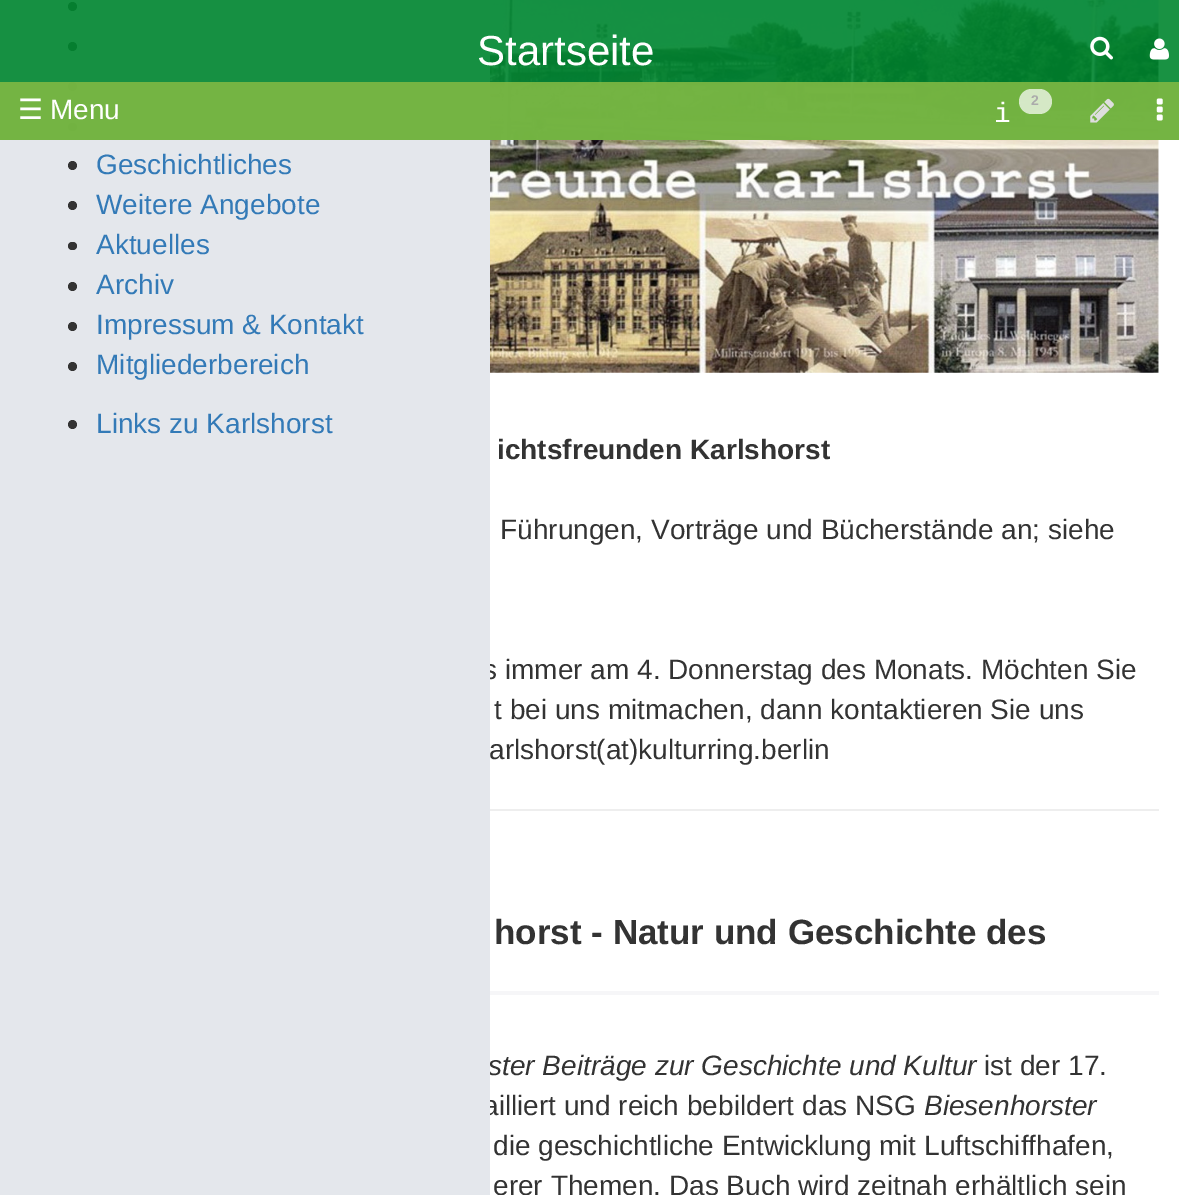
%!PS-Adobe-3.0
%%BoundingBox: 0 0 1179 1195
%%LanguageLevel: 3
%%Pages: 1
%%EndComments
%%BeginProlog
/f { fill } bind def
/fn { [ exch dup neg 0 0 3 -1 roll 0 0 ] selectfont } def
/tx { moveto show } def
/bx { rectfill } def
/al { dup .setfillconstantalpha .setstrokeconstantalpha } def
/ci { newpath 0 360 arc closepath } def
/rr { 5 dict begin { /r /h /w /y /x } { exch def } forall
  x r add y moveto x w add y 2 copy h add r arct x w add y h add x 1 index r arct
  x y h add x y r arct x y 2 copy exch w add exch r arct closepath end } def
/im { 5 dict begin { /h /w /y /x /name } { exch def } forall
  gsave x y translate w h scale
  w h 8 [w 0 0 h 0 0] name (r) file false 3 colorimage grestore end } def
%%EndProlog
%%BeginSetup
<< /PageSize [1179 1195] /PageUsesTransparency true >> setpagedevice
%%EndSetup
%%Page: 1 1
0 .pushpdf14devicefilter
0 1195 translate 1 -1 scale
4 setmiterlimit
1 setgray
0 0 1179 1195 bx
/LiberationSans-Regular 28 fn
0.2 setgray
(s immer am 4. Donnerstag des Monats. Möchten Sie) 483 679 tx
/LiberationSans-Italic 28 fn
(ster Beiträge zur Geschichte und Kultur) 488 1075 tx
/LiberationSans-Regular 28 fn
(ailliert und reich bebildert das NSG) 483 1115 tx
0.894 0.906 0.925 setrgbcolor
0 0 490 1195 bx
0.2 setgray
72.5 6.5 4.5 ci f
72.5 46.5 4.5 ci f
72.5 86.5 4.5 ci f
68 123 9 8 4 rr f
(image4.raw) 490 0 669 373 im
0.9 al
0 0.525 0.184 setrgbcolor
0 0 1179 140 bx
/LiberationSans-Regular 42 fn
1 al
1 setgray
(Startseite) 477 65 tx
(image0.raw) 1090 36 23 24 im
(image1.raw) 1149 38 20 22 im
0.9 al
0.494 0.722 0.263 setrgbcolor
0 82 1179 58 bx
/DejaVuSans-Regular 28 fn
1 al
1 setgray
(☰) 18 119 tx
/LiberationSans-Regular 28 fn
(Menu) 50 119 tx
0.7 al
1019 89 33 25 12.5 rr f
/LiberationSans-Bold 14 fn
1 al
0.671 setgray
(2) 1031 105 tx
/LiberationMono-Regular 28 fn
1 setgray
(i) 994 122 tx
(image2.raw) 1090 98 24 25 im
(image3.raw) 1156 98 7 23 im
0.2 setgray
72.5 165.5 4.5 ci f
/LiberationSans-Regular 28 fn
0.2 0.478 0.718 setrgbcolor
(Geschichtliches) 96 174 tx
0.2 setgray
72.5 205.5 4.5 ci f
0.2 0.478 0.718 setrgbcolor
(Weitere Angebote) 96 214 tx
0.2 setgray
68 242 9 8 4 rr f
0.2 0.478 0.718 setrgbcolor
(Aktuelles) 96 254 tx
0.2 setgray
72.5 286.5 4.5 ci f
0.2 0.478 0.718 setrgbcolor
(Archiv) 96 294 tx
0.2 setgray
72.5 326.5 4.5 ci f
0.2 0.478 0.718 setrgbcolor
(Impressum & Kontakt) 96 334 tx
0.2 setgray
72.5 366.5 4.5 ci f
0.2 0.478 0.718 setrgbcolor
(Mitgliederbereich) 96 374 tx
0.2 setgray
72.5 424.5 4.5 ci f
0.2 0.478 0.718 setrgbcolor
(Links zu Karlshorst) 96 433 tx
/LiberationSans-Bold 28 fn
0.2 setgray
(ichtsfreunden Karlshorst) 497 459 tx
/LiberationSans-Regular 28 fn
(Führungen, Vorträge und Bücherstände an; siehe) 500 539 tx
(t bei uns mitmachen, dann kontaktieren Sie uns) 494 719 tx
(arlshorst\(at\)kulturring.berlin) 489 759 tx
0.933 setgray
490 809 669 2 bx
0.965 0.965 0.973 setrgbcolor
490 991 669 4 bx
/LiberationSans-Bold 35 fn
0.2 setgray
(horst - Natur und Geschichte des) 494 944 tx
/LiberationSans-Regular 28 fn
(ist der 17.) 984 1075 tx
/LiberationSans-Italic 28 fn
(Biesenhorster) 924 1115 tx
/LiberationSans-Regular 28 fn
(die geschichtliche Entwicklung mit Luftschiffhafen,) 493 1155 tx
(erer Themen. Das Buch wird zeitnah erhältlich sein) 493 1195 tx
.poppdf14devicefilter showpage
%%EOF
